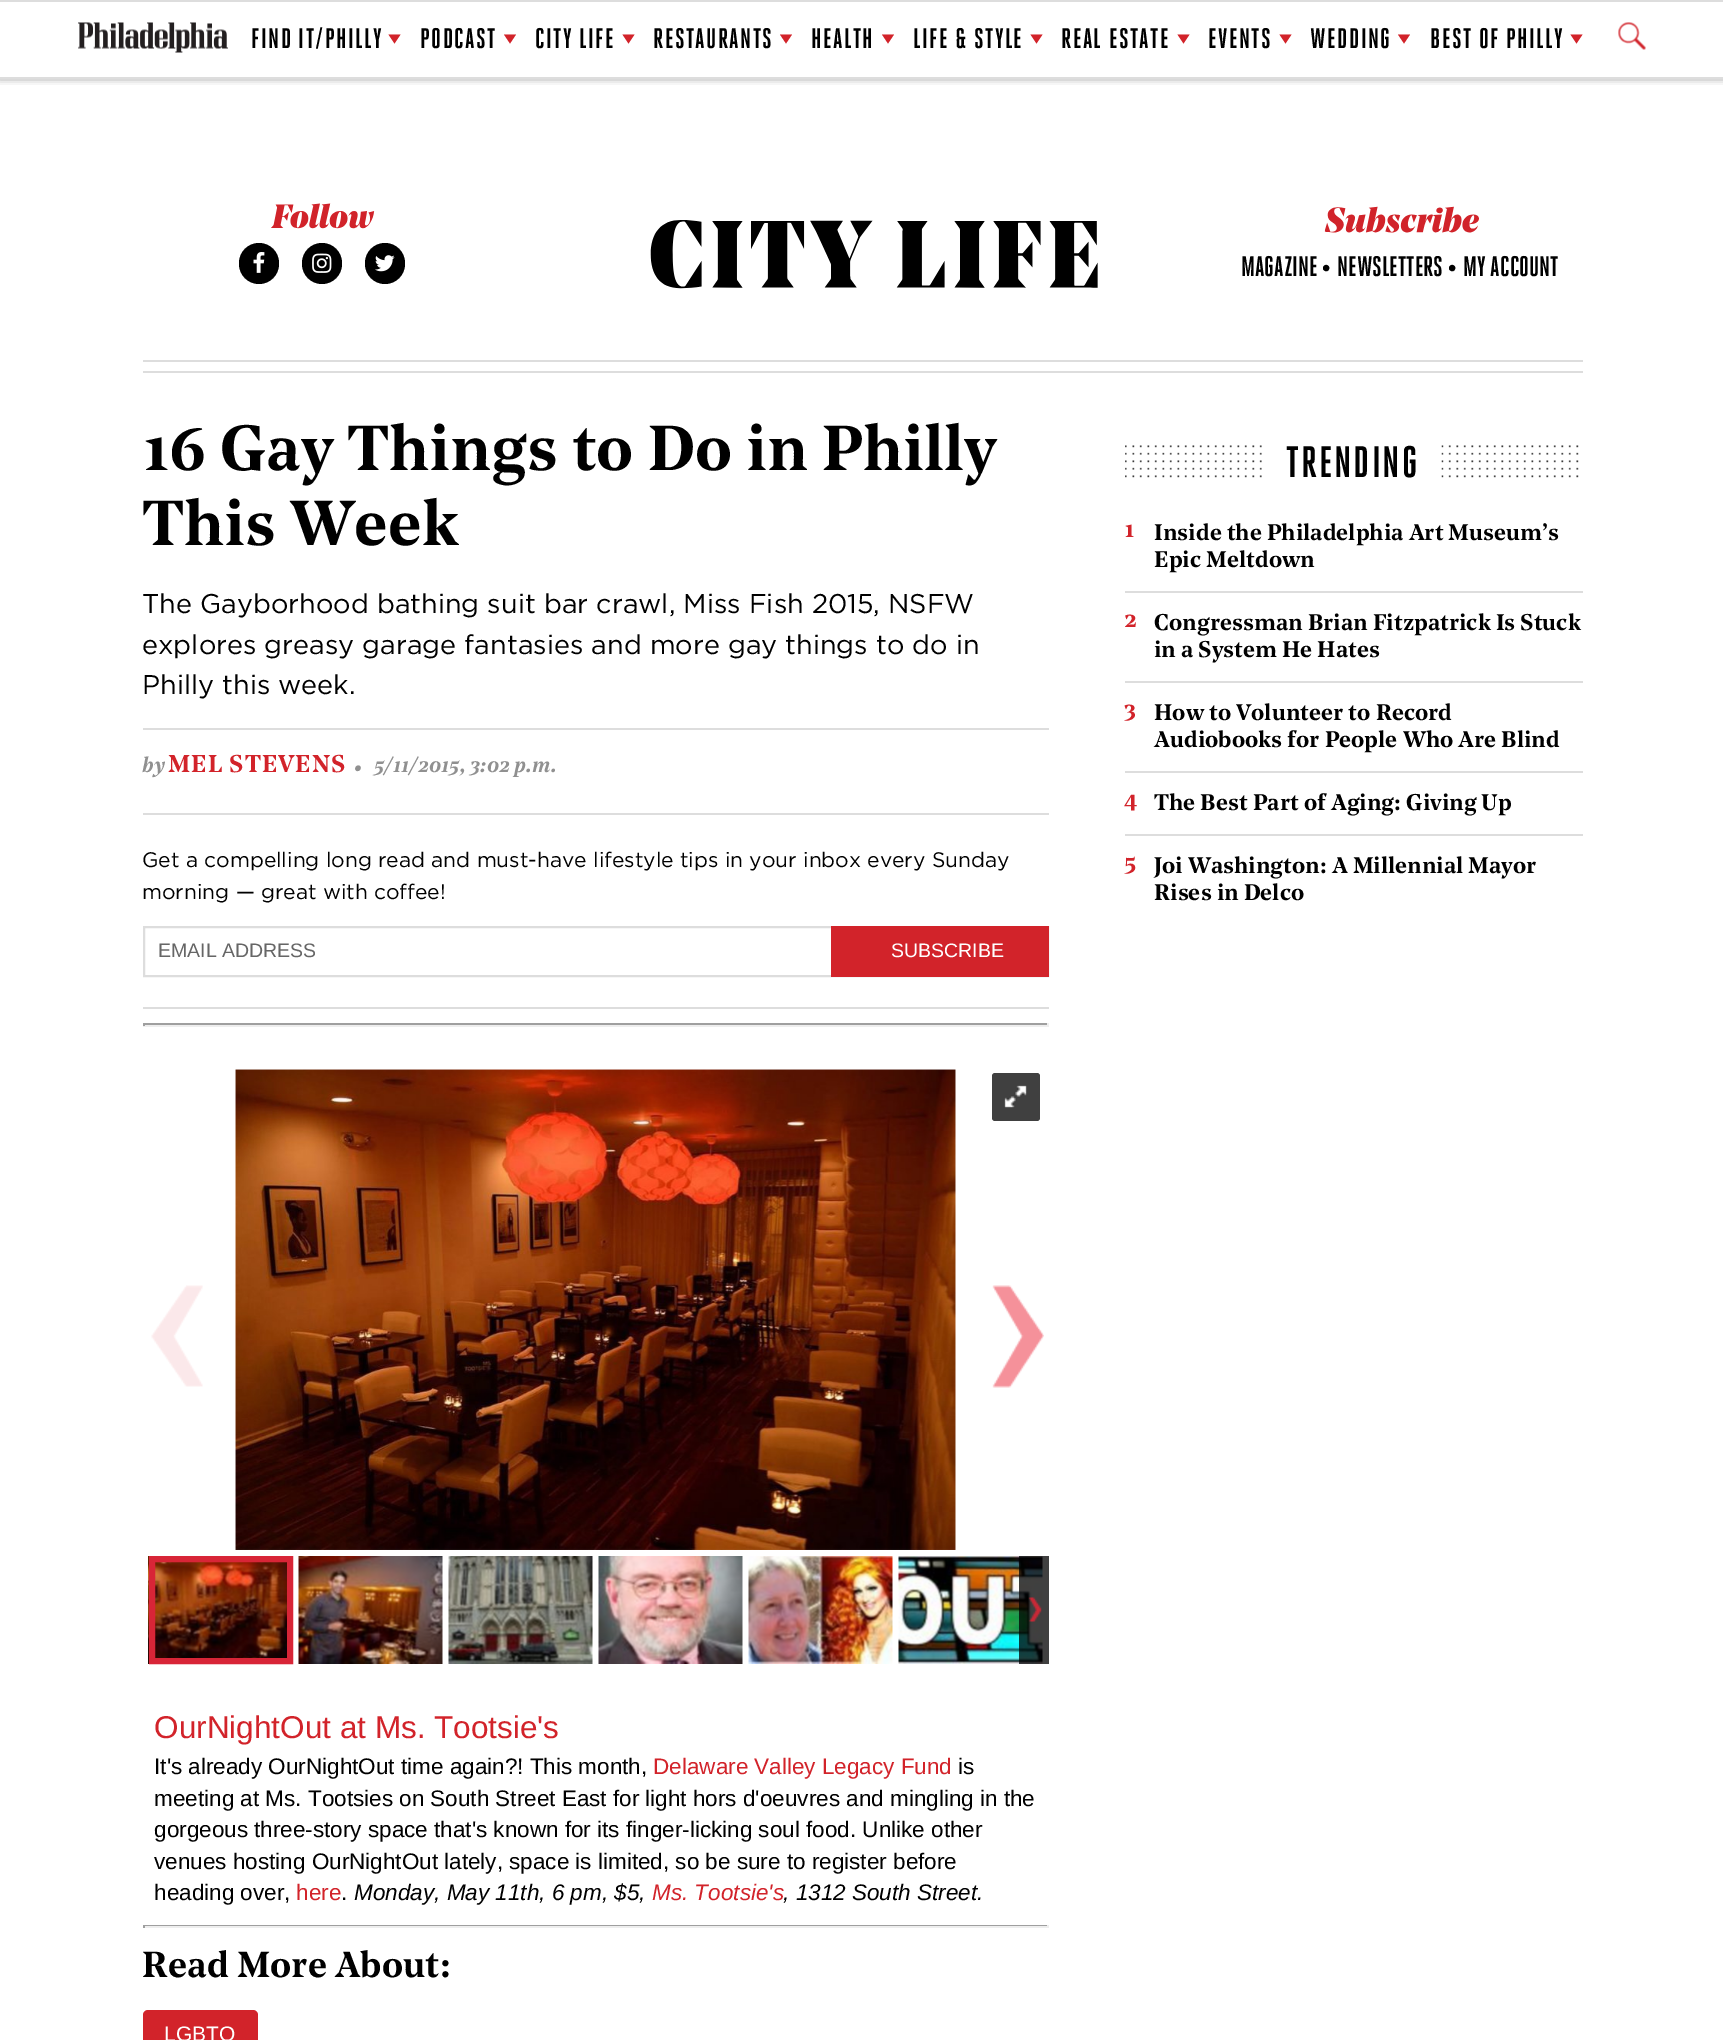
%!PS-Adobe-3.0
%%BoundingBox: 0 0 1723 2040
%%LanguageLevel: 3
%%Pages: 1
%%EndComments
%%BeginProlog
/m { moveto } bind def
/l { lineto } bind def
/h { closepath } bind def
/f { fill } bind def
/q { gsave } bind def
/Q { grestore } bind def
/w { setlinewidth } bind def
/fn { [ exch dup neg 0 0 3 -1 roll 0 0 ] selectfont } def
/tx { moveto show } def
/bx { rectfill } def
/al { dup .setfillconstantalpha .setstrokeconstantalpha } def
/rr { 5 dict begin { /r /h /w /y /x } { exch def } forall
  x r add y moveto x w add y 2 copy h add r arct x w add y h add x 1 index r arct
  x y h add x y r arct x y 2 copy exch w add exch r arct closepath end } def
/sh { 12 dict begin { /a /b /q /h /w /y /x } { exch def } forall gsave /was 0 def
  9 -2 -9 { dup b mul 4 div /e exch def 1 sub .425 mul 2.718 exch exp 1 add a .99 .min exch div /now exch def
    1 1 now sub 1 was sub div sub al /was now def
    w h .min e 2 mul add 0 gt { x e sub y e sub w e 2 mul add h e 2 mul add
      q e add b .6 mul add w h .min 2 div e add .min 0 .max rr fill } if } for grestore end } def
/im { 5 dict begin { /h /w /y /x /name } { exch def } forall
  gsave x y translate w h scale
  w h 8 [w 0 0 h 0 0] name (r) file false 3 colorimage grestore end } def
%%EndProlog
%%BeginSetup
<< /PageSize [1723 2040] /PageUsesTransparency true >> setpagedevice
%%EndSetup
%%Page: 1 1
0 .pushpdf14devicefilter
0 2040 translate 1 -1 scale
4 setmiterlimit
1 setgray
0 0 1723 2040 bx
q
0 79 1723 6 rectclip
0 setgray
0 0 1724 78 0 4 0.5 sh
Q
0.867 setgray
0 0 1723 2 bx
0 77 1723 2 bx
(image0.raw) 78 22 150 31 im
/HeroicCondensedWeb-SemiBold 27 fn
0 setgray
251 48 m 1.4 0 (FIND IT/PHILLY) ashow
0.824 0.137 0.165 setrgbcolor
388.5 34.5 m 400.5 34.5 l 394.5 43.5 l h f
0 setgray
420 48 m 1.4 0 (PODCAST) ashow
0.824 0.137 0.165 setrgbcolor
504 34.5 m 516 34.5 l 510 43.5 l h f
0 setgray
535 48 m 1.4 0 (CITY LIFE) ashow
0.824 0.137 0.165 setrgbcolor
622.5 34.5 m 634.5 34.5 l 628.5 43.5 l h f
0 setgray
653 48 m 1.4 0 (RESTAURANTS) ashow
0.824 0.137 0.165 setrgbcolor
780 34.5 m 792 34.5 l 786 43.5 l h f
0 setgray
811 48 m 1.4 0 (HEALTH) ashow
0.824 0.137 0.165 setrgbcolor
882 34.5 m 894 34.5 l 888 43.5 l h f
0 setgray
913 48 m 1.4 0 (LIFE & STYLE) ashow
0.824 0.137 0.165 setrgbcolor
1030.5 34.5 m 1042.5 34.5 l 1036.5 43.5 l h f
0 setgray
1061 48 m 1.4 0 (REAL ESTATE) ashow
0.824 0.137 0.165 setrgbcolor
1177.5 34.5 m 1189.5 34.5 l 1183.5 43.5 l h f
0 setgray
1208 48 m 1.4 0 (EVENTS) ashow
0.824 0.137 0.165 setrgbcolor
1279.5 34.5 m 1291.5 34.5 l 1285.5 43.5 l h f
0 setgray
1310 48 m 1.4 0 (WEDDING) ashow
0.824 0.137 0.165 setrgbcolor
1398 34.5 m 1410 34.5 l 1404 43.5 l h f
0 setgray
1430 48 m 1.4 0 (BEST OF PHILLY) ashow
0.824 0.137 0.165 setrgbcolor
1570.5 34.5 m 1582.5 34.5 l 1576.5 43.5 l h f
(image1.raw) 1618 22 28 28 im
(image2.raw) 271 203 104 26 im
0 setgray
239 243 40 41 20 rr f
(image3.raw) 253 252 12 21 im
302 243 40 41 20 rr f
(image4.raw) 312 253 20 20 im
365 243 40 41 20 rr f
(image5.raw) 375 255 20 17 im
(image6.raw) 650 220 448 69 im
(image7.raw) 1324 206 155 27 im
(MAGAZINE) 1241 276 tx
/LiberationSans-Regular 24 fn
(•) 1322 276 tx
/HeroicCondensedWeb-SemiBold 27 fn
(NEWSLETTERS) 1337 276 tx
/LiberationSans-Regular 24 fn
(•) 1448 276 tx
/HeroicCondensedWeb-SemiBold 27 fn
(MY ACCOUNT) 1463 276 tx
0.867 setgray
143 360 1440 2 bx
143 371 1440 2 bx
/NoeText-SemiBold 63 fn
0 setgray
(16 Gay Things to Do in Philly) 142 470 tx
(This Week) 142 545 tx
/Gotham-Regular 27 fn
(The Gayborhood bathing suit bar crawl, Miss Fish 2015, NSFW) 142 613 tx
(explores greasy garage fantasies and more gay things to do in) 142 654 tx
(Philly this week.) 142 694 tx
0.867 setgray
143 728 906 2 bx
143 813 906 2 bx
/NoeText-SemiBoldItalic 21 fn
0.565 setgray
(by) 142 772 tx
/NoeText-SemiBold 24 fn
0.824 0.137 0.165 setrgbcolor
168 772 m 1 0 (MEL STEVENS) ashow
/NoeText-SemiBoldItalic 33 fn
0.565 setgray
(·) 353 778 tx
/NoeText-SemiBoldItalic 21 fn
(5/11/2015, 3:02 p.m.) 374 772 tx
0.867 setgray
143 1007 906 2 bx
/Gotham-Regular 21 fn
0 setgray
(Get a compelling long read and must-have lifestyle tips in your inbox every Sunday) 142 867 tx
(morning — great with coffee!) 142 899 tx
0.867 setgray
2 w
144 927 904 49 rectstroke
/LiberationSans-Regular 19.5 fn
0.4 setgray
(EMAIL ADDRESS) 158 957 tx
0.824 0.137 0.165 setrgbcolor
831 926 218 51 bx
1 setgray
(SUBSCRIBE) 891 957 tx
0.624 setgray
143 1023 906 2 bx
0.933 setgray
1047 1023 2 3 bx
143 1025 906 2 bx
0.624 setgray
143 1023 2 3 bx
(image8.raw) 235 1069 721 481 im
0.251 setgray
992 1073 48 48 3 rr f
(image9.raw) 1004 1085 23 23 im
(image10.raw) 151 1285 52 102 im
(image11.raw) 992 1285 52 103 im
(image12.raw) 148 1556 139 108 im
0.847 0.145 0.216 setrgbcolor
6 w
152 1559 138 102 rectstroke
(image13.raw) 298 1556 145 108 im
(image14.raw) 448 1556 145 108 im
(image15.raw) 598 1556 145 108 im
(image16.raw) 748 1556 145 108 im
(image17.raw) 898 1556 145 108 im
0.75 al
0 setgray
1019 1556 30 108 bx
1 al
(image18.raw) 1028 1597 14 25 im
/LiberationSans-Regular 31.5 fn
0.824 0.137 0.165 setrgbcolor
(OurNightOut at Ms. Tootsie's) 154 1738 tx
/LiberationSans-Regular 22.5 fn
0 setgray
(It's already OurNightOut time again?! This month,) 154 1774 tx
0.824 0.137 0.165 setrgbcolor
(Delaware Valley Legacy Fund) 653 1774 tx
0 setgray
(is) 958 1774 tx
(meeting at Ms. Tootsies on South Street East for light hors d'oeuvres and mingling in the) 154 1806 tx
(gorgeous three-story space that's known for its finger-licking soul food. Unlike other) 154 1837 tx
(venues hosting OurNightOut lately, space is limited, so be sure to register before) 154 1869 tx
(heading over,) 154 1900 tx
0.824 0.137 0.165 setrgbcolor
(here) 296 1900 tx
0 setgray
(.) 341 1900 tx
/LiberationSans-Italic 22.5 fn
(Monday, May 11th, 6 pm, $5,) 354 1900 tx
0.824 0.137 0.165 setrgbcolor
(Ms. Tootsie's) 652 1900 tx
0 setgray
(, 1312 South Street.) 783 1900 tx
0.624 setgray
143 1925 906 1 bx
0.933 setgray
1047 1925 2 3 bx
143 1926 906 2 bx
0.624 setgray
143 1925 2 3 bx
/NoeText-SemiBold 36 fn
0 setgray
(Read More About:) 142 1977 tx
0.824 0.137 0.165 setrgbcolor
143 2010 115 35 5 rr f
/LiberationSans-Regular 21 fn
1 setgray
(LGBTQ) 164 2041 tx
(image19.raw) 1125 445 137 33 im
/HeroicCondensedWeb-SemiBold 42 fn
0 setgray
1286 477 m 2 0 (TRENDING) ashow
(image20.raw) 1441 445 138 33 im
0.867 setgray
1125 591 458 2 bx
/NoeText-SemiBold 24 fn
0.824 0.137 0.165 setrgbcolor
(1) 1124 537 tx
/NoeText-SemiBold 22.5 fn
0 setgray
(Inside the Philadelphia Art Museum’s) 1154 540 tx
(Epic Meltdown) 1154 567 tx
0.867 setgray
1125 681 458 2 bx
/NoeText-SemiBold 24 fn
0.824 0.137 0.165 setrgbcolor
(2) 1124 627 tx
/NoeText-SemiBold 22.5 fn
0 setgray
(Congressman Brian Fitzpatrick Is Stuck) 1154 630 tx
(in a System He Hates) 1154 657 tx
0.867 setgray
1125 771 458 2 bx
/NoeText-SemiBold 24 fn
0.824 0.137 0.165 setrgbcolor
(3) 1124 717 tx
/NoeText-SemiBold 22.5 fn
0 setgray
(How to Volunteer to Record) 1154 720 tx
(Audiobooks for People Who Are Blind) 1154 747 tx
0.867 setgray
1125 834 458 2 bx
/NoeText-SemiBold 24 fn
0.824 0.137 0.165 setrgbcolor
(4) 1124 807 tx
/NoeText-SemiBold 22.5 fn
0 setgray
(The Best Part of Aging: Giving Up) 1154 810 tx
/NoeText-SemiBold 24 fn
0.824 0.137 0.165 setrgbcolor
(5) 1124 870 tx
/NoeText-SemiBold 22.5 fn
0 setgray
(Joi Washington: A Millennial Mayor) 1154 873 tx
(Rises in Delco) 1154 900 tx
.poppdf14devicefilter showpage
%%EOF
